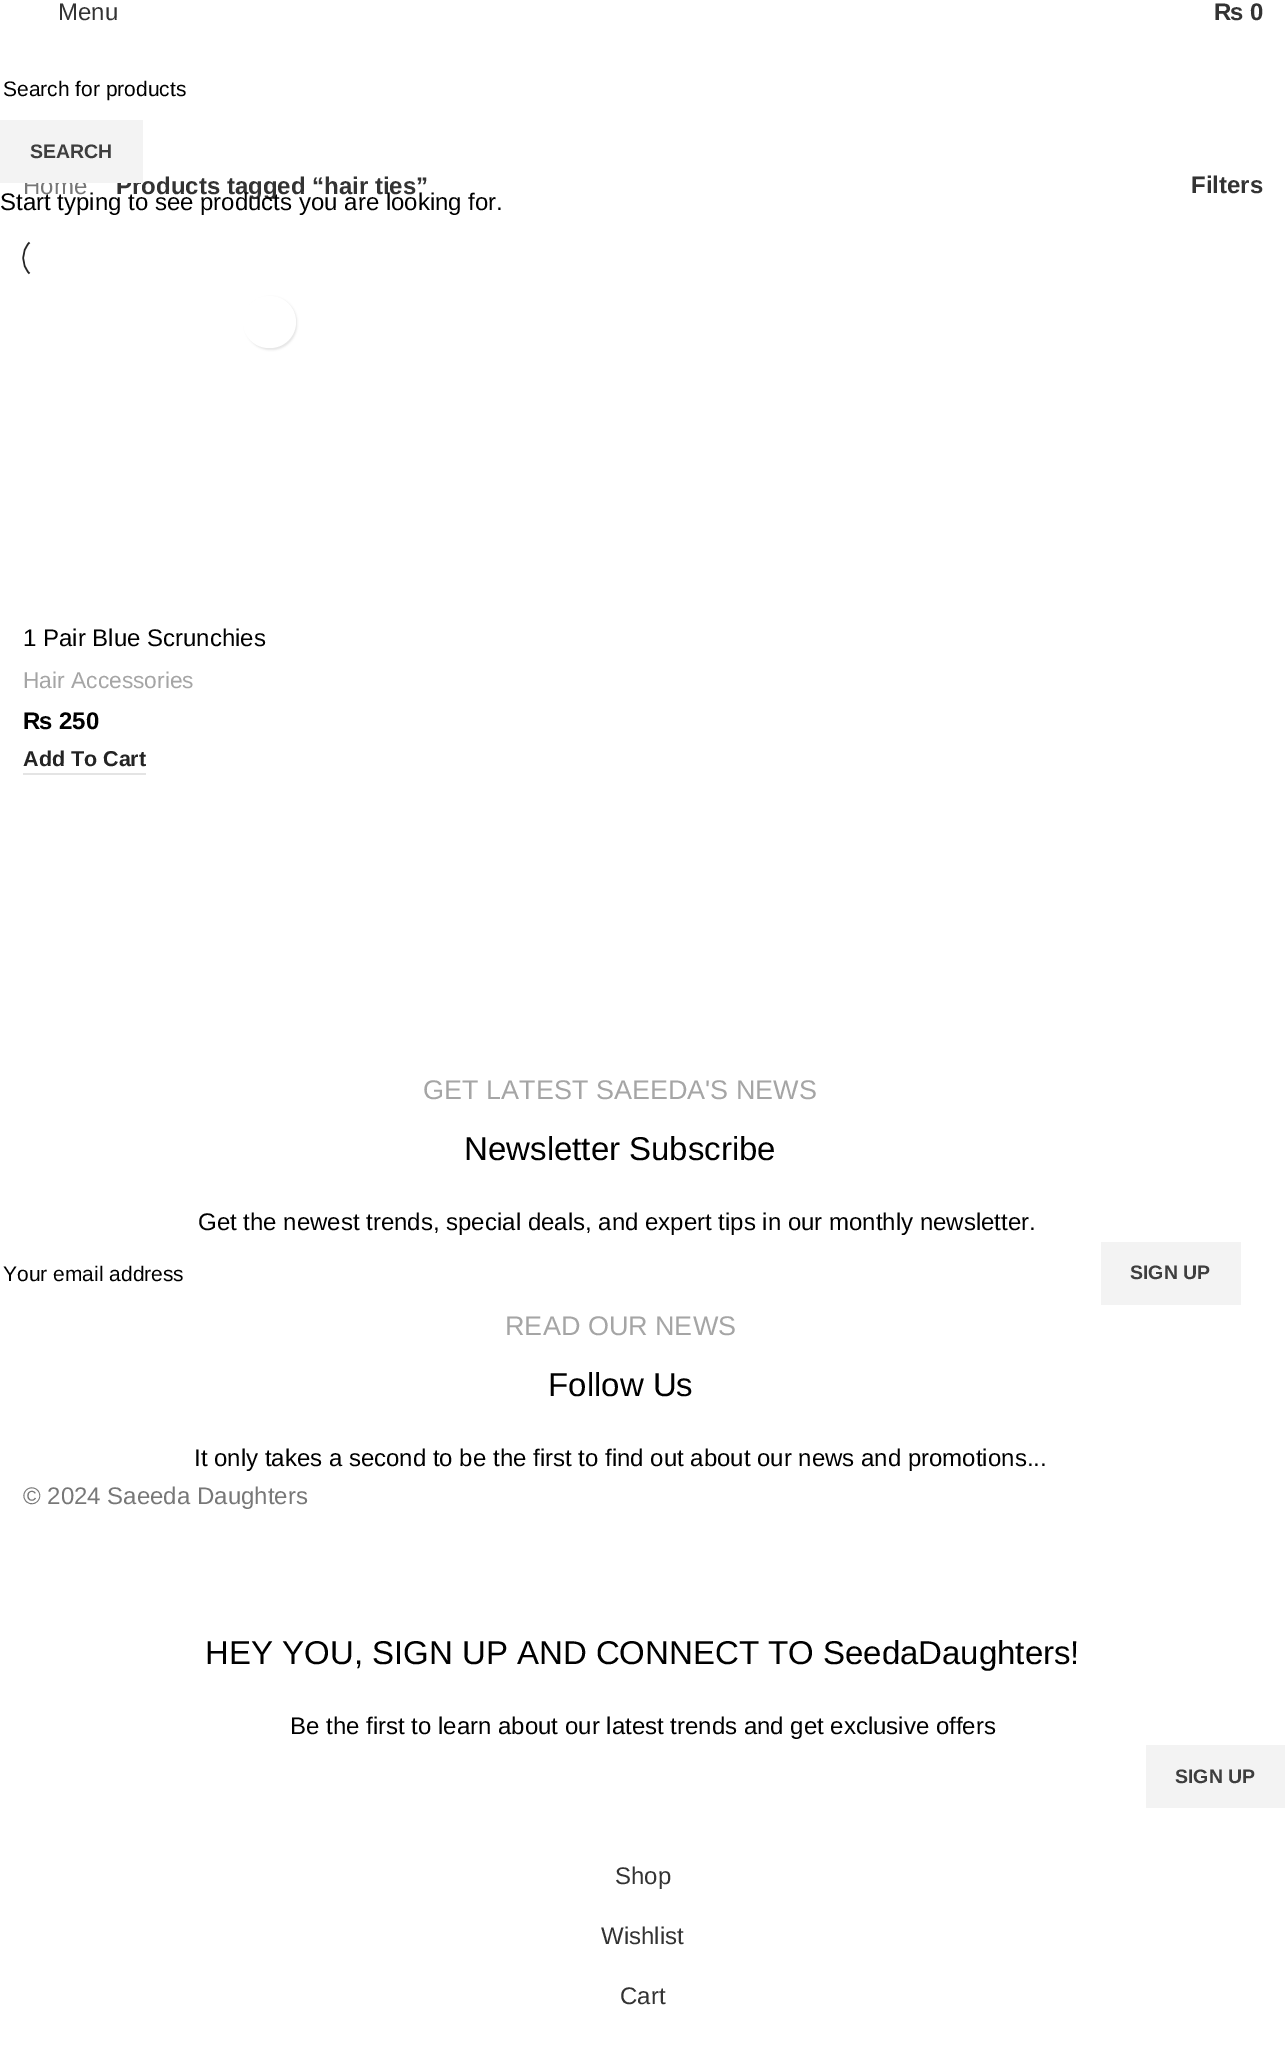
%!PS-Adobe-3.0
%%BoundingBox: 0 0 1285 2053
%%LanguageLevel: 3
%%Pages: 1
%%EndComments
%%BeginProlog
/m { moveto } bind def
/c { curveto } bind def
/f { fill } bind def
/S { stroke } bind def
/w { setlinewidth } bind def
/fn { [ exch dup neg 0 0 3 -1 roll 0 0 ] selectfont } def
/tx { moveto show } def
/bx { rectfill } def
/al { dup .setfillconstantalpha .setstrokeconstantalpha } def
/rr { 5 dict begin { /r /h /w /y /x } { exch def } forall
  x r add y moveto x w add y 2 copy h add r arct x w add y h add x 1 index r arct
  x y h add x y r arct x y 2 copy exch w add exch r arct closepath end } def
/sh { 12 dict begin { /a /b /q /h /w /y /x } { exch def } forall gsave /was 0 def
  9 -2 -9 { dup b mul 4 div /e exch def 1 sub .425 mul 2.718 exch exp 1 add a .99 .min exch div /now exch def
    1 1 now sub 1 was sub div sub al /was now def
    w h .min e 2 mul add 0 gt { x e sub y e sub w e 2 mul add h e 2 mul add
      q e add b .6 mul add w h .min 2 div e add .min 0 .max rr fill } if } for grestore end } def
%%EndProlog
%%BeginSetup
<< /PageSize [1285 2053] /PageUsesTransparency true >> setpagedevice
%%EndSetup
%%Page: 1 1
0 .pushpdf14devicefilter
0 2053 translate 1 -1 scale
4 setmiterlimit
1 setgray
0 0 1285 2053 bx
/LiberationSans-Regular 24 fn
0.2 setgray
(Menu) 58 20 tx
/LiberationSans-Bold 24 fn
(₨ 0) 1214 20 tx
/LiberationSans-Regular 24 fn
0.467 setgray
(Home) 23 194 tx
/LiberationSans-Bold 24 fn
0.2 setgray
(Products tagged “hair ties”) 116 194 tx
(Filters) 1191 193 tx
0.141 setgray
1.5 w
29.5 273.5 m 21 265 21 251 29.5 242.5 c S
0 setgray
245 297 52 53 26 1 0.1 sh
1 setgray
243 296 53 52 26 rr f
/LiberationSans-Regular 24 fn
0 setgray
(1 Pair Blue Scrunchies) 23 646 tx
/LiberationSans-Regular 22.75 fn
0.647 setgray
(Hair Accessories) 23 688 tx
/LiberationSans-Bold 24 fn
0 setgray
(₨ 250) 23 729 tx
0.894 setgray
23 773 123 2 bx
/LiberationSans-Bold 21.5 fn
0.141 setgray
(Add To Cart) 23 766 tx
/LiberationSans-Regular 27 fn
0.647 setgray
(GET LATEST SAEEDA'S NEWS) 423 1099 tx
/LiberationSans-Regular 33 fn
0 setgray
(Newsletter Subscribe) 464 1160 tx
/LiberationSans-Regular 24 fn
(Get the newest trends, special deals, and expert tips in our monthly newsletter.) 198 1230 tx
/LiberationSans-Regular 21 fn
(Your email address) 3 1281 tx
0.953 setgray
1101 1242 140 63 bx
/LiberationSans-Bold 19.5 fn
0.243 setgray
(SIGN UP) 1130 1279 tx
/LiberationSans-Regular 27 fn
0.647 setgray
(READ OUR NEWS) 505 1335 tx
/LiberationSans-Regular 33 fn
0 setgray
(Follow Us) 548 1396 tx
/LiberationSans-Regular 24 fn
(It only takes a second to be the first to find out about our news and promotions...) 194 1466 tx
0.467 setgray
(© 2024 Saeeda Daughters) 23 1504 tx
/LiberationSans-Regular 21 fn
0 setgray
(Search for products) 3 96 tx
0.953 setgray
0 120 143 63 bx
/LiberationSans-Bold 19.5 fn
0.243 setgray
(SEARCH) 30 158 tx
/LiberationSans-Regular 24 fn
0 setgray
(Start typing to see products you are looking for.) 0 210 tx
/LiberationSans-Regular 33 fn
(HEY YOU, SIGN UP AND CONNECT TO SeedaDaughters!) 205 1664 tx
/LiberationSans-Regular 24 fn
(Be the first to learn about our latest trends and get exclusive offers) 290 1734 tx
0.953 setgray
1146 1745 139 63 bx
/LiberationSans-Bold 19.5 fn
0.243 setgray
(SIGN UP) 1175 1783 tx
/LiberationSans-Regular 24 fn
0.2 setgray
(Shop) 615 1884 tx
(Wishlist) 601 1944 tx
(Cart) 620 2004 tx
.poppdf14devicefilter showpage
%%EOF
